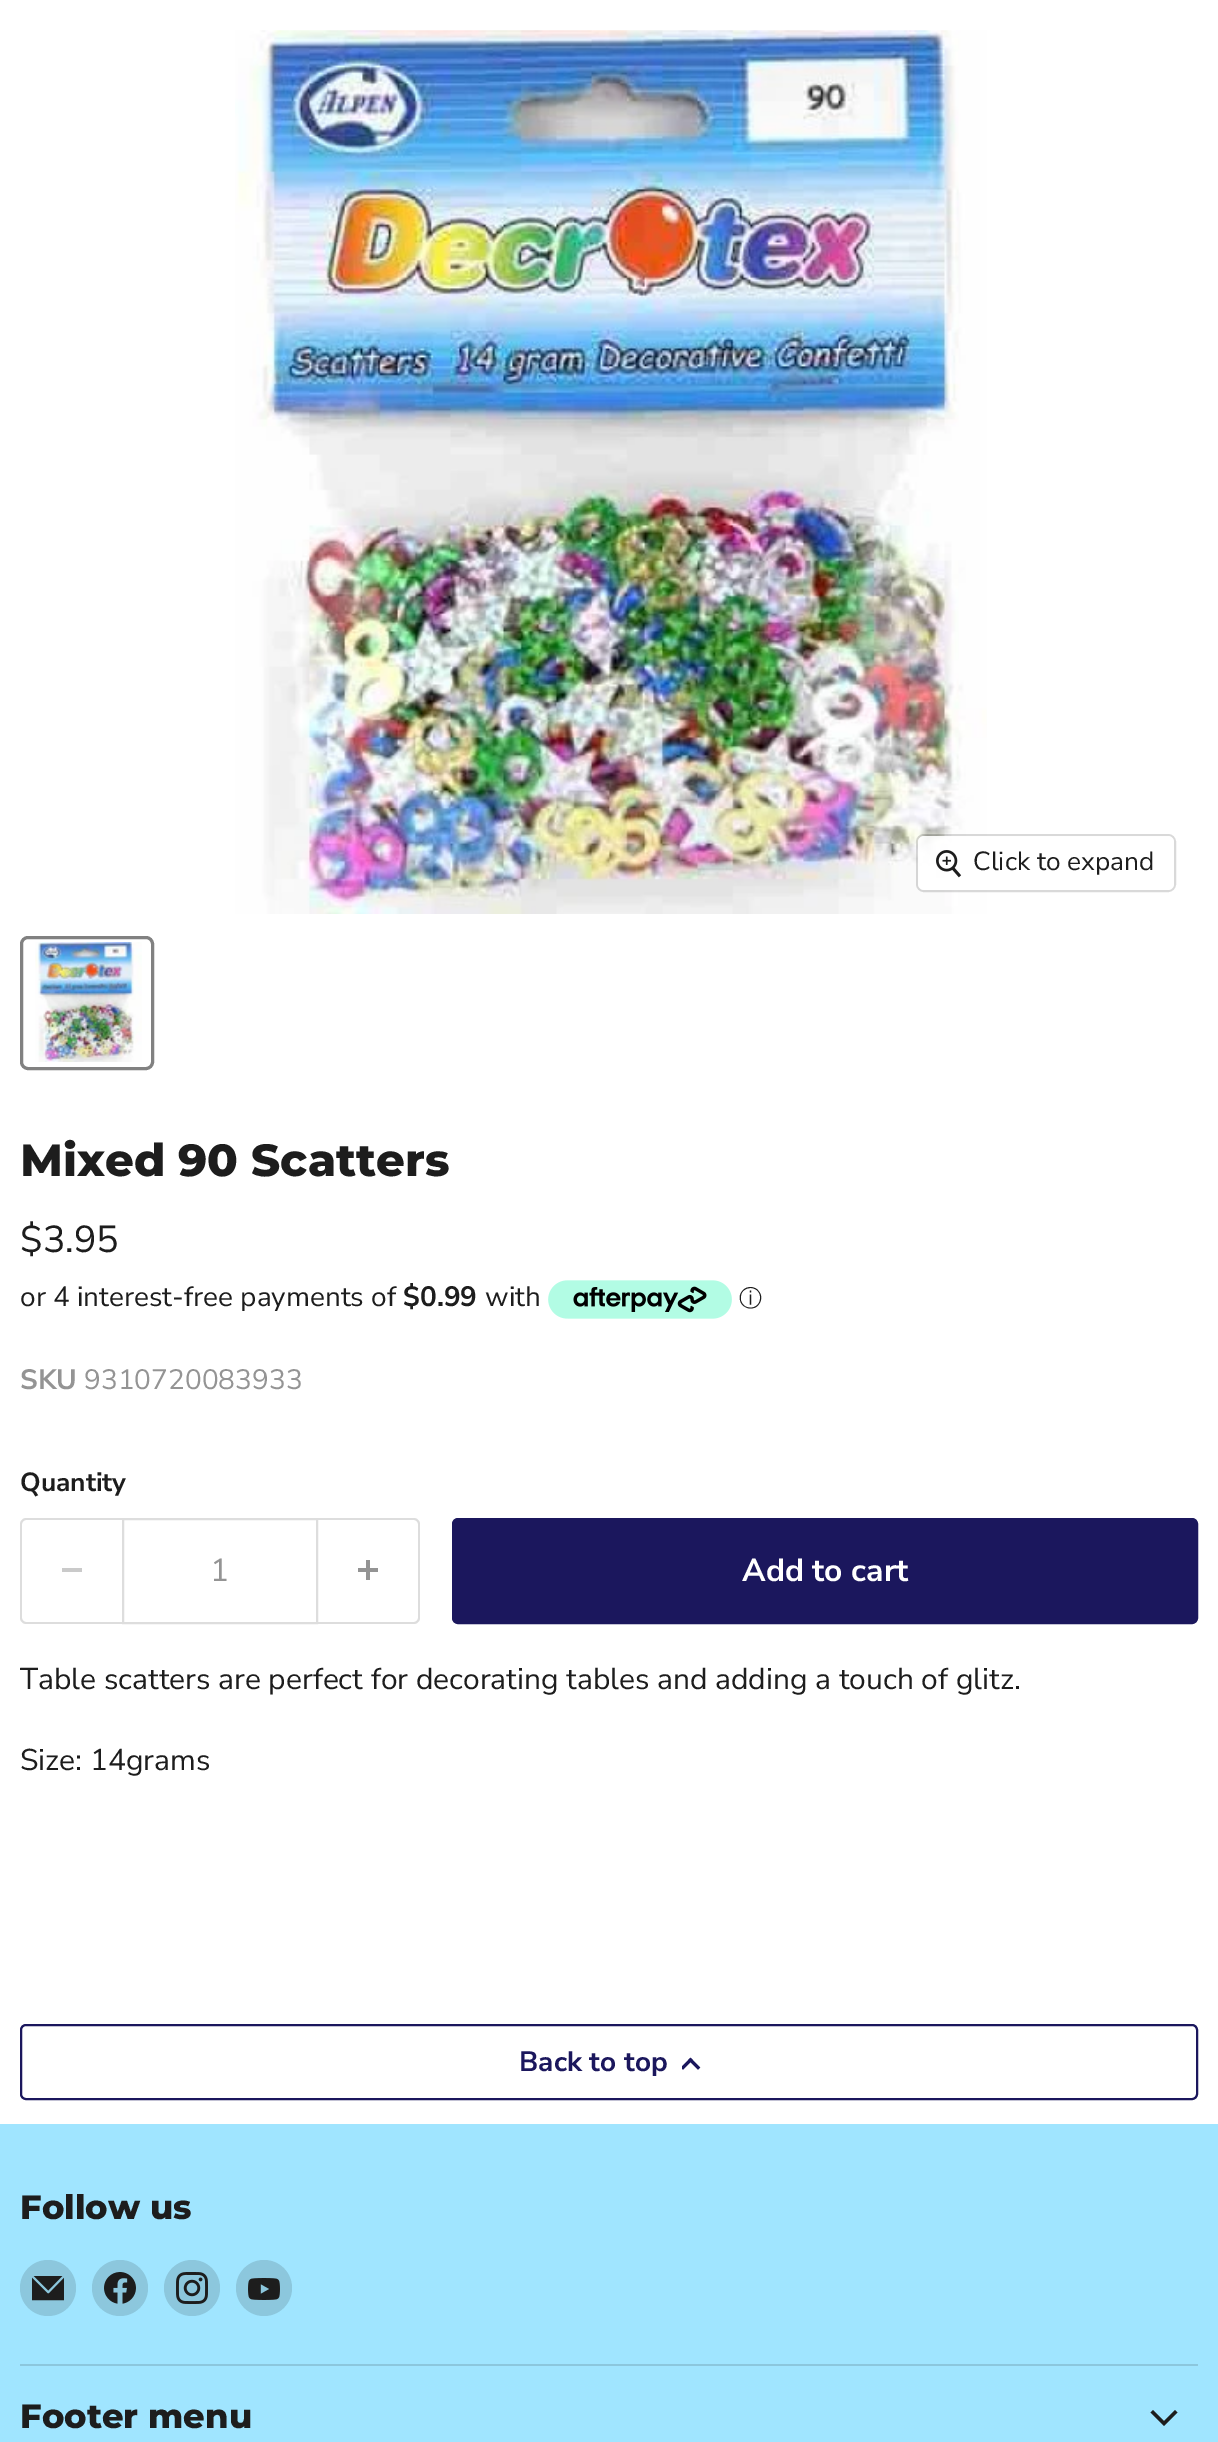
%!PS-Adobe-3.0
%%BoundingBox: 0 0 1218 2442
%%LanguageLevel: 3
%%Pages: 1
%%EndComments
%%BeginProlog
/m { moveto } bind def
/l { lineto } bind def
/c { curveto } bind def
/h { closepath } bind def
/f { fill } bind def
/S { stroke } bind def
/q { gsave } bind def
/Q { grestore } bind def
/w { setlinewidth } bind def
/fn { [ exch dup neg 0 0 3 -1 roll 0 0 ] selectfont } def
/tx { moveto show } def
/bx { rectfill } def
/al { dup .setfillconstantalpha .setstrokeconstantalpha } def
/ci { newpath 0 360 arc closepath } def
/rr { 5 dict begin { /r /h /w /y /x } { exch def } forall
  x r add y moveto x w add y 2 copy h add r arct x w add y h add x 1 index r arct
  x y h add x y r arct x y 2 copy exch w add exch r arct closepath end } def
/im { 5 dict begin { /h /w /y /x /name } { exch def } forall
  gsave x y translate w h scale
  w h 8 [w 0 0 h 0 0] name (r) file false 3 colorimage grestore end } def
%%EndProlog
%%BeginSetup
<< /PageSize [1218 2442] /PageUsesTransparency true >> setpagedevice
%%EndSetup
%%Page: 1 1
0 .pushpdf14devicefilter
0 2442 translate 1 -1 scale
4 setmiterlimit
1 setgray
0 0 1218 2442 bx
(image0.raw) 235 30 752 884 im
0.15 al
0 setgray
2 w
917 835 258 56 7 rr S
0.9 al
1 setgray
918 836 256 54 6 rr f
1 al
(image1.raw) 936 850 26 28 im
/NunitoSans-Regular 26.25 fn
0.114 setgray
(Click to expand) 973 870 tx
0.506 setgray
3 w
21.5 937.5 131 131 6.5 rr S
(image2.raw) 35 942 107 120 im
/Montserrat-ExtraBold 45 fn
0.114 setgray
(Mixed 90 Scatters) 20 1176 tx
/NunitoSans-Regular 37.5 fn
($3.95) 20 1252 tx
/NunitoSans-Regular 28 fn
(or 4 interest-free payments of) 20 1306 tx
/NunitoSans-Bold 28 fn
($0.99) 403 1306 tx
/NunitoSans-Regular 28 fn
(with) 485 1306 tx
(image3.raw) 548 1280 184 39 im
/WenQuanYiZenHei-Medium 23 fn
(ⓘ) 739 1306 tx
/NunitoSans-Bold 28 fn
0.58 setgray
(SKU) 20 1389 tx
/NunitoSans-Regular 28 fn
(9310720083933) 84 1389 tx
/NunitoSans-Bold 26.25 fn
0.114 setgray
(Quantity) 20 1491 tx
0.867 setgray
26 1518 m 122 1518 l 122 1624 l 26 1624 l 23 1624 20 1621 20 1618 c 20 1524 l 20 1521 23 1518 26 1518 c h 26 1520 m 122 1520 l 122 1622 l 26 1622 l 24 1622 22 1620 22 1618 c 22 1524 l 22 1522 24 1520 26 1520 c h eofill
0.792 setgray
62 1568 20 4 bx
0.867 setgray
2 w
123 1519 194 104 rectstroke
/NunitoSans-Regular 31.75 fn
0.58 setgray
(1) 210 1581 tx
0.867 setgray
318 1518 m 414 1518 l 417 1518 420 1521 420 1524 c 420 1618 l 420 1621 417 1624 414 1624 c 318 1624 l h 318 1520 m 414 1520 l 416 1520 418 1522 418 1524 c 418 1618 l 418 1620 416 1622 414 1622 c 318 1622 l h eofill
(image4.raw) 358 1560 20 20 im
0.106 0.09 0.365 setrgbcolor
453 1519 744 104 5 rr q f Q
S
/NunitoSans-Bold 31.75 fn
1 setgray
(Add to cart) 742 1581 tx
/NunitoSans-Regular 30 fn
0.114 setgray
(Table scatters are perfect for decorating tables and adding a touch of glitz.) 20 1689 tx
(Size: 14grams) 20 1770 tx
0.106 0.09 0.365 setrgbcolor
21 2025 1176 74 5 rr S
/NunitoSans-Bold 28 fn
(Back to top) 519 2071 tx
q
682 2056 20 14 rectclip
3.1 w
2 setlinecap
690.5 2060 m 683 2067.5 l S
Q
3.1 w
2 setlinecap
690.5 2060 m 698 2067.5 l S
0.627 0.898 1 setrgbcolor
0 2124 1218 318 bx
0.549 0.78 0.867 setrgbcolor
20 2364 1178 2 bx
/Montserrat-ExtraBold 33.75 fn
0.114 setgray
(Follow us) 20 2219 tx
0.549 0.78 0.867 setrgbcolor
48 2288 28 ci f
(image5.raw) 32 2276 32 25 im
120 2288 28 ci f
(image6.raw) 104 2272 32 32 im
192 2288 28 ci f
(image7.raw) 176 2272 32 32 im
264 2288 28 ci f
(image8.raw) 248 2278 32 22 im
0.114 setgray
(Footer menu) 20 2428 tx
3.5 w
1164 2423.5 m 1175 2412.5 l 1164 2423.5 m 1153 2412.5 l S
.poppdf14devicefilter showpage
%%EOF
